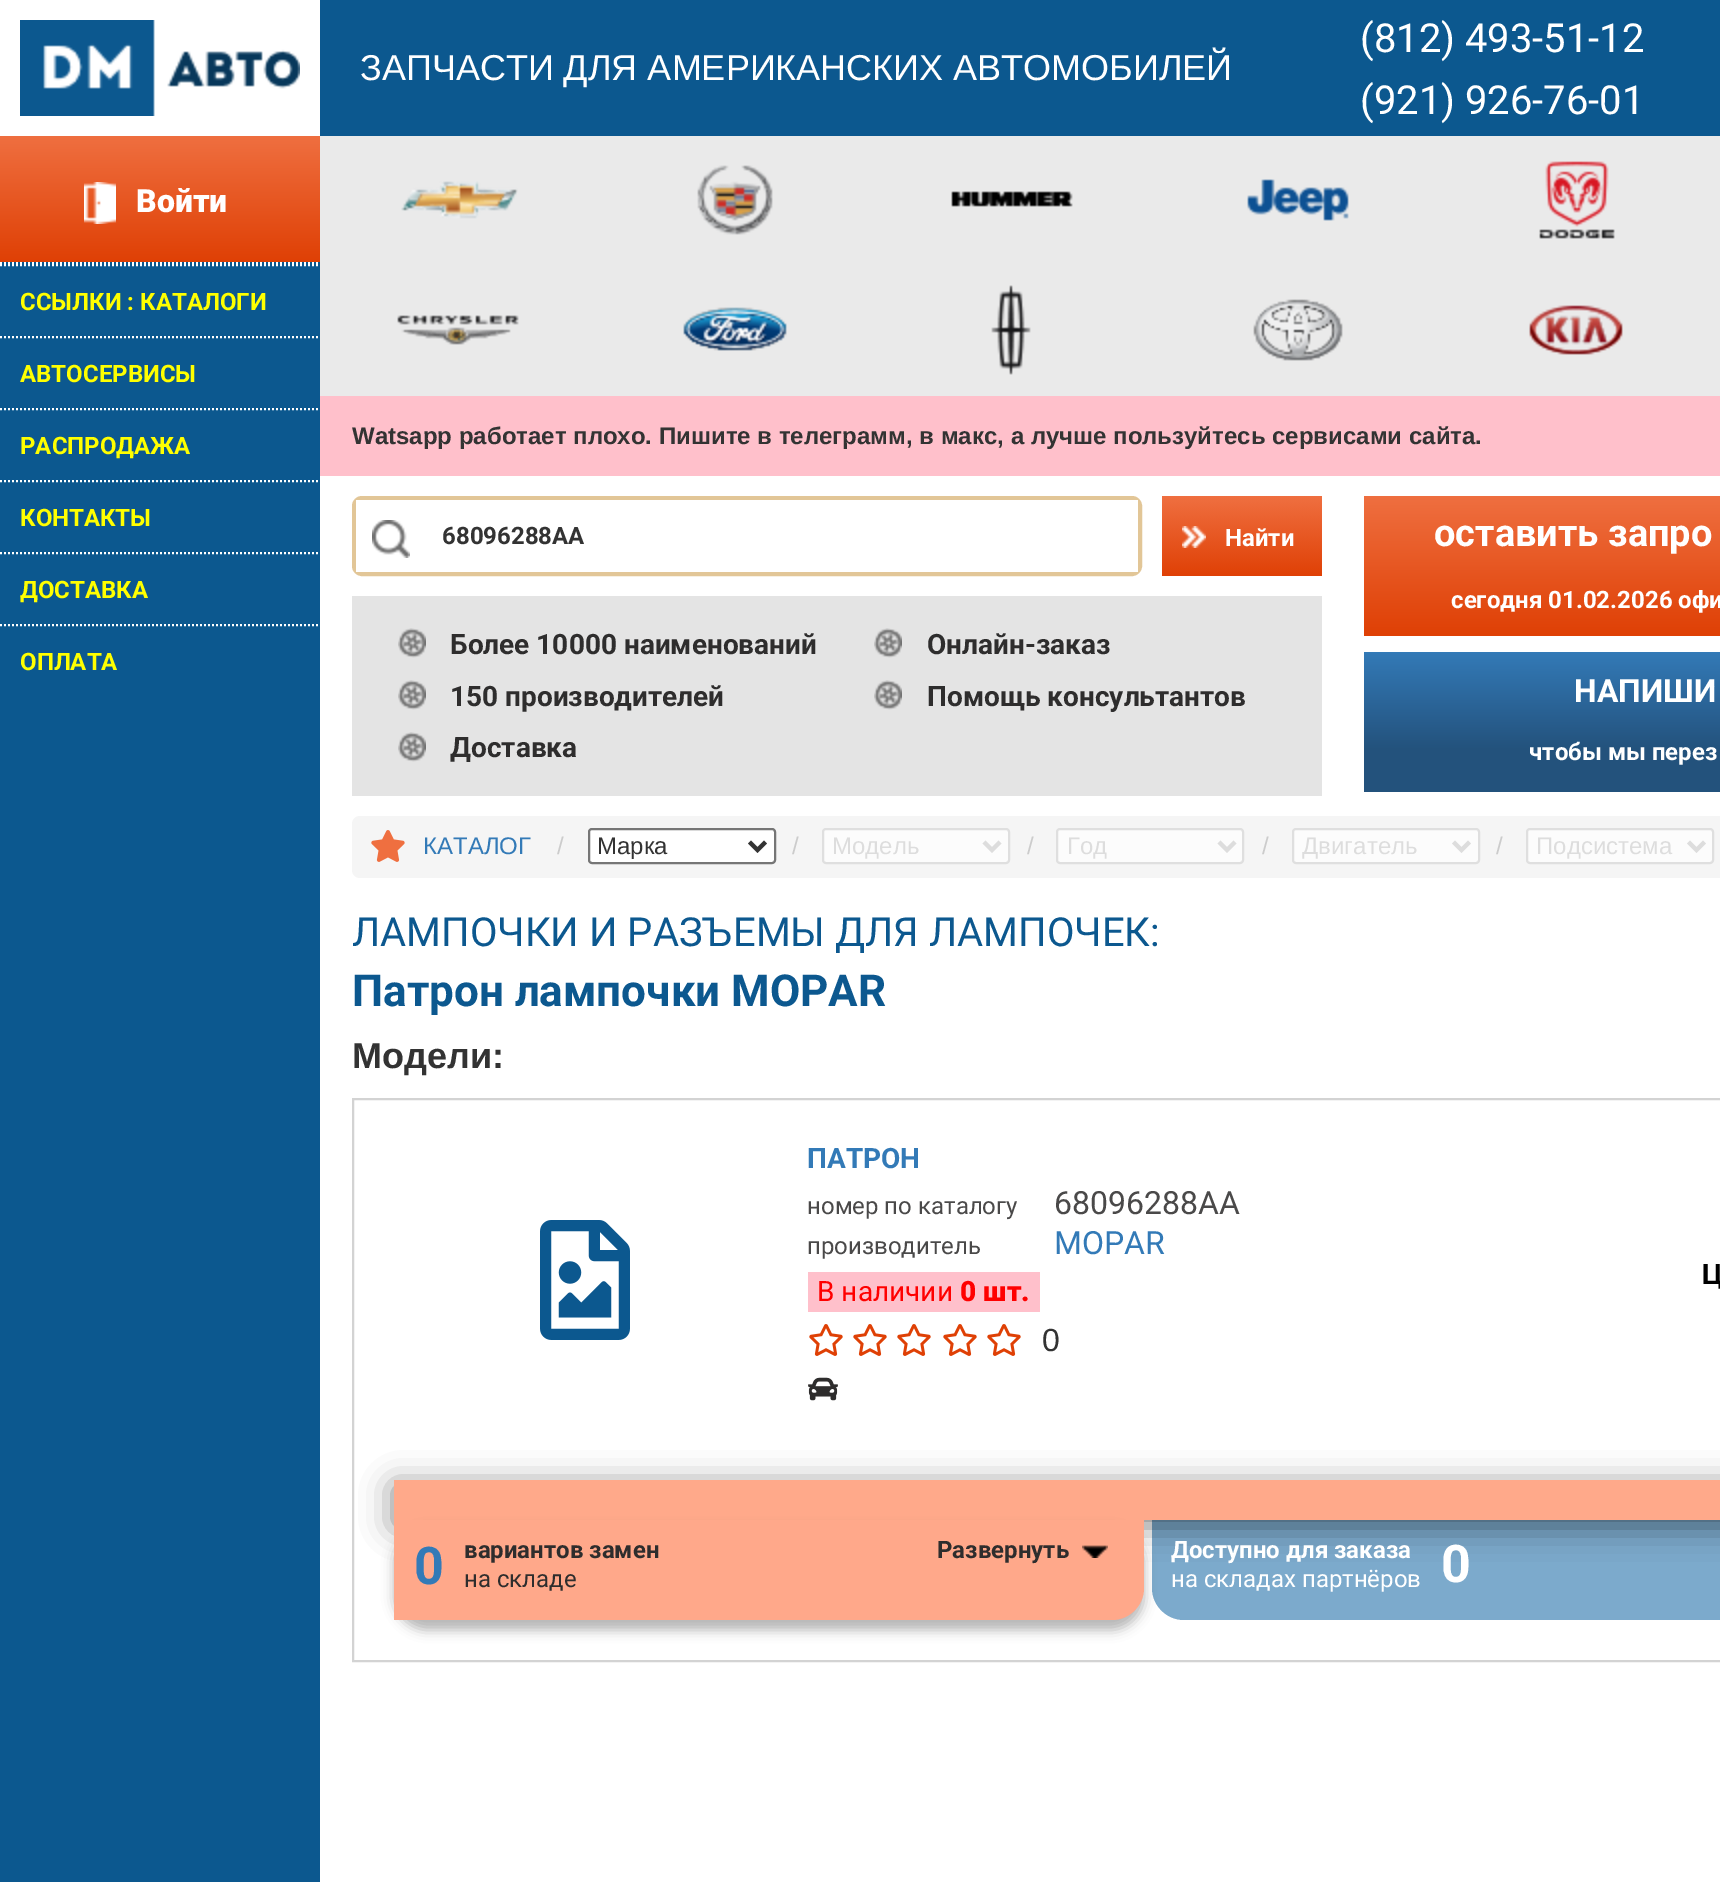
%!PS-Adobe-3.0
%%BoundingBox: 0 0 1720 1882
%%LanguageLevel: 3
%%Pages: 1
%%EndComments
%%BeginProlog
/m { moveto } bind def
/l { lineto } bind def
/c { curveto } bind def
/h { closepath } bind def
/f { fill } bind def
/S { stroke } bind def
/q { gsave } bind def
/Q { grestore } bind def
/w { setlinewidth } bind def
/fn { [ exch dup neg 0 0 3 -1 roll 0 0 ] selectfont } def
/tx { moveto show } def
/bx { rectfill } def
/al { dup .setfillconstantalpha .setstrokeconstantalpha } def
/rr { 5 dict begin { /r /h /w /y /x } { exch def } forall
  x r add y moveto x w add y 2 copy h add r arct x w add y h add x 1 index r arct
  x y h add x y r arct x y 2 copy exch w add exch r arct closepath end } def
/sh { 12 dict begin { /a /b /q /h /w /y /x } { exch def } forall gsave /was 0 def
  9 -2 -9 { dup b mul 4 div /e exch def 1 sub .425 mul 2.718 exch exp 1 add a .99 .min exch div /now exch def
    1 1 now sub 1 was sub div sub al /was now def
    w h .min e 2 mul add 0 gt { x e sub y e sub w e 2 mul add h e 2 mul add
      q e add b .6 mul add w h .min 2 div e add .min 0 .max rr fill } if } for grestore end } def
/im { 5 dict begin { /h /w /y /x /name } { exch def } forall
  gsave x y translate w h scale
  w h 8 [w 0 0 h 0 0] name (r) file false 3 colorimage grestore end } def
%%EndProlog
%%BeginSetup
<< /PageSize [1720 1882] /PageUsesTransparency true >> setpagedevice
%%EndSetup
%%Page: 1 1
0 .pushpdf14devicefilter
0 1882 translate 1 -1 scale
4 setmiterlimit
0.047 0.345 0.561 setrgbcolor
0 0 1720 1882 bx
1 setgray
0 0 320 136 bx
(image0.raw) 20 20 280 96 im
q 0 136 m 320 136 l 320 262 l 0 262 l h clip newpath
<< /ShadingType 2 /ColorSpace /DeviceRGB /Coords [160 136 160 262] /Extend [true true] /Function << /FunctionType 2 /Domain [0 1] /C0 [0.937 0.435 0.251] /C1 [0.875 0.251 0.02] /N 1 >> >> shfill Q
(image1.raw) 84 182 32 42 im
/Roboto-Black 32 fn
(Войти) 136 212 tx
2 w
[2 2] 0 setdash
0 263 m 320 263 l S
0 265 m 320 265 l S
/Roboto-Bold 24 fn
1 1 0 setrgbcolor
(ССЫЛКИ : КАТАЛОГИ) 20 310 tx
1 setgray
0 337 m 320 337 l S
1 1 0 setrgbcolor
(АВТОСЕРВИСЫ) 20 382 tx
1 setgray
0 409 m 320 409 l S
1 1 0 setrgbcolor
(РАСПРОДАЖА) 20 454 tx
1 setgray
0 481 m 320 481 l S
1 1 0 setrgbcolor
(КОНТАКТЫ) 20 526 tx
1 setgray
0 553 m 320 553 l S
1 1 0 setrgbcolor
(ДОСТАВКА) 20 598 tx
1 setgray
0 625 m 320 625 l S
1 1 0 setrgbcolor
(ОПЛАТА) 20 670 tx
1 setgray
320 476 1400 1406 bx
/LiberationSans-Regular 36 fn
(ЗАПЧАСТИ ДЛЯ АМЕРИКАНСКИХ АВТОМОБИЛЕЙ) 360 80 tx
/Roboto-Regular 40 fn
(\(812\) 493-51-12) 1360 52 tx
(\(921\) 926-76-01) 1360 114 tx
0.918 setgray
320 136 1400 260 bx
(image2.raw) 401 181 117 38 im
(image3.raw) 697 165 76 70 im
(image4.raw) 951 191 122 16 im
(image5.raw) 1247 179 102 42 im
(image6.raw) 1539 161 76 78 im
(image7.raw) 397 315 122 30 im
(image8.raw) 683 307 104 44 im
(image9.raw) 991 285 40 90 im
(image10.raw) 1253 299 90 62 im
(image11.raw) 1529 305 94 50 im
1 0.753 0.796 setrgbcolor
320 396 1400 80 bx
/LiberationSans-Bold 24 fn
0.2 setgray
(Watsapp работает плохо. Пишите в телеграмм, в макс, а лучше пользуйтесь сервисами сайта.) 352 444 tx
0.886 0.776 0.592 setrgbcolor
4 w
[] 0 setdash
354 498 786 76 8 rr S
1 setgray
356 500 782 72 bx
(image12.raw) 372 520 38 38 im
/Roboto-Bold 24 fn
0.2 setgray
(68096288AA) 442 544 tx
(image13.raw) 1162 496 160 80 im
1 setgray
(Найти) 1225 546 tx
0.894 setgray
352 596 970 200 bx
(image14.raw) 398 628 28 30 im
/Roboto-Bold 28 fn
0.18 0.176 0.176 setrgbcolor
(Более 10000 наименований) 450 654 tx
(image14.raw) 398 680 28 30 im
(150 производителей) 450 706 tx
(image14.raw) 398 732 28 30 im
(Доставка) 450 757 tx
(image14.raw) 874 628 28 30 im
(Онлайн-заказ) 927 654 tx
(image14.raw) 874 680 28 30 im
(Помощь консультантов) 927 706 tx
q 1364 496 m 1720 496 l 1720 636 l 1364 636 l h clip newpath
<< /ShadingType 2 /ColorSpace /DeviceRGB /Coords [1664 496 1664 636] /Extend [true true] /Function << /FunctionType 2 /Domain [0 1] /C0 [0.937 0.435 0.251] /C1 [0.875 0.251 0.02] /N 1 >> >> shfill Q
/Roboto-Bold 38 fn
1 setgray
(оставить запро) 1434 546 tx
/Roboto-Bold 24 fn
(сегодня 01.02.2026 офи) 1451 608 tx
q 1364 652 m 1720 652 l 1720 792 l 1364 792 l h clip newpath
<< /ShadingType 2 /ColorSpace /DeviceRGB /Coords [1664 792 1664 652] /Extend [true true] /Function << /FunctionType 3 /Domain [0 1] /Functions [<< /FunctionType 2 /Domain [0 1] /C0 [0.137 0.322 0.486] /C1 [0.137 0.322 0.486] /N 1 >> << /FunctionType 2 /Domain [0 1] /C0 [0.137 0.322 0.486] /C1 [0.2 0.478 0.718] /N 1 >>] /Bounds [0.3] /Encode [0 1 0 1] >> >> shfill Q
/Roboto-Bold 32 fn
(НАПИШИ) 1574 702 tx
/Roboto-Bold 24 fn
(чтобы мы перез) 1529 760 tx
0.961 setgray
352 816 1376 62 8 rr f
(image15.raw) 371 830 34 32 im
/LiberationSans-Regular 24 fn
0.2 0.478 0.718 setrgbcolor
(КАТАЛОГ) 423 854 tx
0.8 setgray
(/) 557 854 tx
1 setgray
589 829 186 34 3 rr q f Q
0.463 setgray
2 w
S
0.2 setgray
4 w
749.5 842 m 757.5 850 l 765.5 842 l S
(Марка) 597 854 tx
0.8 setgray
(/) 792 854 tx
0.988 setgray
823 829 186 34 3 rr q f Q
0.875 setgray
2 w
S
0.867 setgray
4 w
984 842 m 992 850 l 1000 842 l S
(Модель) 832 854 tx
0.8 setgray
(/) 1027 854 tx
0.988 setgray
1057 829 186 34 3 rr q f Q
0.875 setgray
2 w
S
0.867 setgray
4 w
1219 842 m 1227 850 l 1235 842 l S
(Год) 1067 854 tx
0.8 setgray
(/) 1262 854 tx
0.988 setgray
1293 829 186 34 3 rr q f Q
0.875 setgray
2 w
S
0.867 setgray
4 w
1453.5 842 m 1461.5 850 l 1469.5 842 l S
q
1302 830 144 32 rectclip
(Двигатель) 1302 854 tx
Q
0.8 setgray
(/) 1496 854 tx
0.988 setgray
1527 829 186 34 3 rr q f Q
0.875 setgray
2 w
S
0.867 setgray
4 w
1688.5 842 m 1696.5 850 l 1704.5 842 l S
(Подсистема) 1536 854 tx
/Roboto-Regular 40 fn
0.047 0.345 0.561 setrgbcolor
(ЛАМПОЧКИ И РАЗЪЕМЫ ДЛЯ ЛАМПОЧЕК:) 352 946 tx
/Roboto-Bold 44 fn
(Патрон лампочки MOPAR) 352 1006 tx
/LiberationSans-Bold 36 fn
0.2 setgray
(Модели:) 352 1068 tx
0.827 setgray
2 w
353 1099 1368 562 rectstroke
(image16.raw) 540 1220 90 120 im
/Roboto-Bold 28 fn
0.2 0.478 0.718 setrgbcolor
(ПАТРОН) 807 1168 tx
/Roboto-Regular 24 fn
0.29 0.286 0.286 setrgbcolor
(номер по каталогу) 807 1214 tx
/Roboto-Regular 32 fn
(68096288AA) 1054 1214 tx
/Roboto-Regular 24 fn
(производитель) 807 1254 tx
/Roboto-Regular 32 fn
0.2 0.478 0.718 setrgbcolor
(MOPAR) 1054 1254 tx
1 0.753 0.796 setrgbcolor
808 1272 232 40 bx
/Roboto-Regular 28 fn
1 0 0 setrgbcolor
(В наличии) 817 1301 tx
/Roboto-Black 28 fn
(0 шт.) 960 1301 tx
(image17.raw) 809 1324 34 32 im
(image17.raw) 853 1324 34 32 im
(image17.raw) 897 1324 34 32 im
(image17.raw) 943 1324 34 32 im
(image17.raw) 987 1324 34 32 im
/LiberationSans-Regular 32 fn
0.2 setgray
(0) 1042 1351 tx
(image18.raw) 808 1377 30 24 im
/Roboto-Bold 28 fn
0 setgray
(Ц) 1702 1284 tx
0.486 0.667 0.8 setrgbcolor
1152 1520 m 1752 1520 l 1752 1588 l 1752 1605.5 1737.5 1620 1720 1620 c 1184 1620 l 1166.5 1620 1152 1605.5 1152 1588 c h f
0 setgray
394 1486 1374 40 0 16 0.49 sh
1 0.663 0.541 setrgbcolor
394 1480 1326 40 bx
0 setgray
394 1530 750 100 32 6 0.29 sh
1 0.659 0.541 setrgbcolor
394 1520 m 1144 1520 l 1144 1588 l 1144 1605.5 1129.5 1620 1112 1620 c 394 1620 l h f
/Roboto-Bold 52 fn
0.2 0.478 0.718 setrgbcolor
(0) 414 1584 tx
/Roboto-Bold 24 fn
0.18 0.176 0.176 setrgbcolor
(вариантов замен) 464 1558 tx
/Roboto-Regular 24 fn
(на складе) 464 1587 tx
(image19.raw) 1082 1545 26 13 im
/Roboto-Bold 24 fn
(Развернуть) 937 1558 tx
1 setgray
(Доступно для заказа) 1171 1558 tx
/Roboto-Regular 24 fn
(на складах партнёров) 1171 1587 tx
/Roboto-Bold 52 fn
(0) 1441 1582 tx
.poppdf14devicefilter showpage
%%EOF
